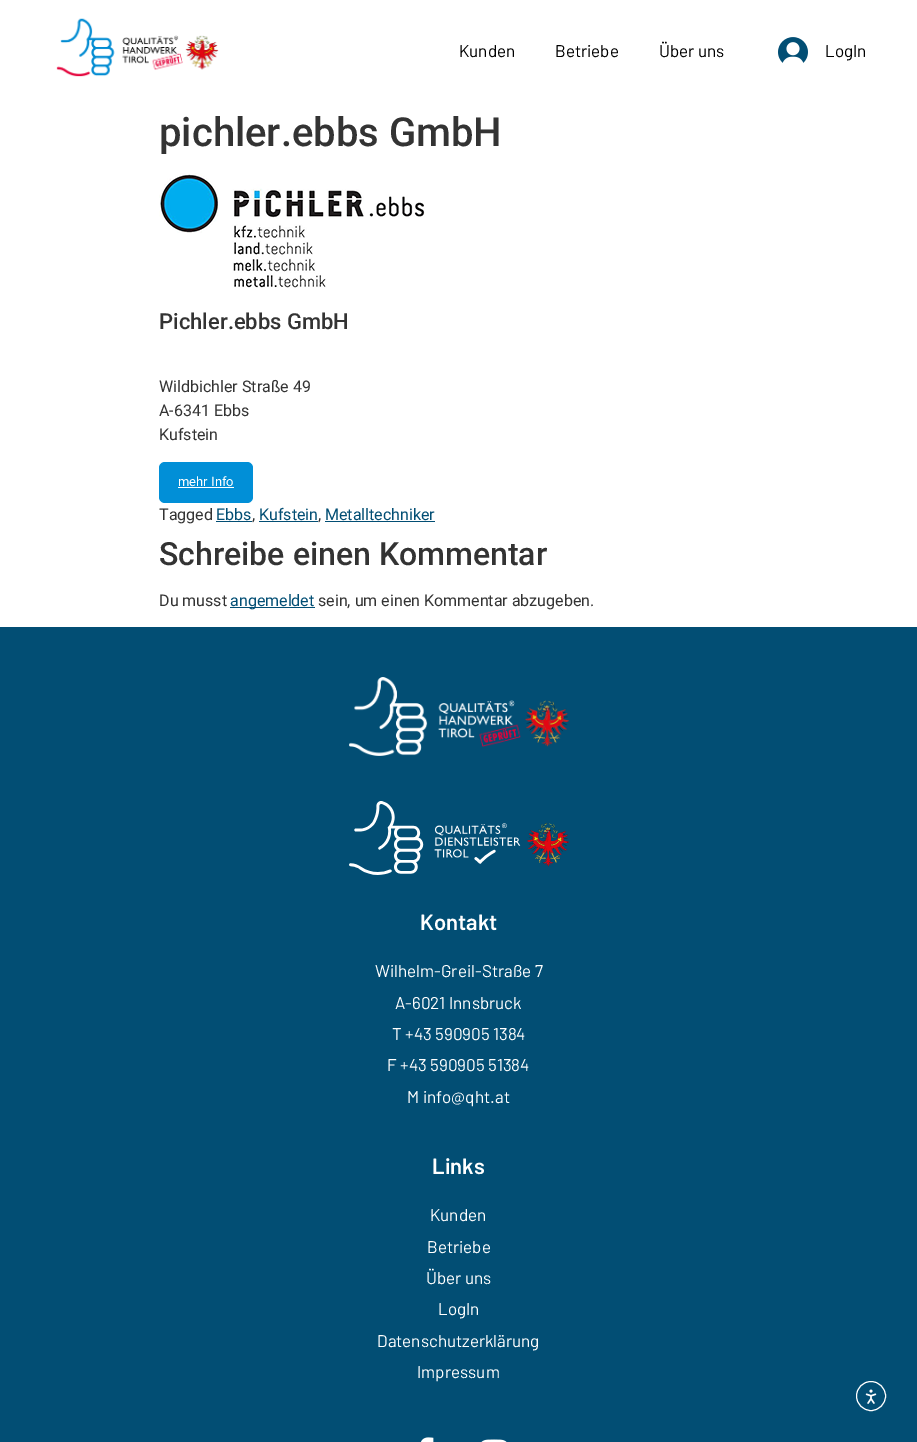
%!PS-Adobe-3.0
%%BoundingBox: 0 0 917 1442
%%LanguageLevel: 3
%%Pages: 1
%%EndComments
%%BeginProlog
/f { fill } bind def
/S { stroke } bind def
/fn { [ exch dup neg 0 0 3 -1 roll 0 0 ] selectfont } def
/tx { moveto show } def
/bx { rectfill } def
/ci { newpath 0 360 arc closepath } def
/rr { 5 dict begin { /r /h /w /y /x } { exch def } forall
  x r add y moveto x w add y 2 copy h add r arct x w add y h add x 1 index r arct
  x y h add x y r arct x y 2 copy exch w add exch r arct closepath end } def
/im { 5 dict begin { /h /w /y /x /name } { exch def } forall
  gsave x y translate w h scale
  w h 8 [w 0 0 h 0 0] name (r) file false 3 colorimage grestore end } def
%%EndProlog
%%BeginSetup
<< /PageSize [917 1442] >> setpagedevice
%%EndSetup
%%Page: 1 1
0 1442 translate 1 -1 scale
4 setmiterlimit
1 setgray
0 0 917 1442 bx
(image0.raw) 56 18 163 59 im
/Barlow-Regular 17 fn
0 setgray
(Kunden) 459 57 tx
(Betriebe) 555 57 tx
(Über uns) 659 57 tx
(image1.raw) 778 37 30 26 im
(LogIn) 825 57 tx
/Roboto-Medium 40 fn
0.2 setgray
(pichler.ebbs GmbH) 159 146 tx
(image2.raw) 159 173 266 115 im
/Roboto-Medium 22 fn
(Pichler.ebbs GmbH) 159 329 tx
/Roboto-Regular 16 fn
(Wildbichler Straße 49) 159 392 tx
(A-6341 Ebbs) 159 416 tx
(Kufstein) 159 440 tx
0.004 0.561 0.843 setrgbcolor
159 462 94 41 6 rr f
/Roboto-Regular 13 fn
1 setgray
(mehr Info) 178 486 tx
178 487 56 1 bx
/Roboto-Regular 16 fn
0.2 setgray
(Tagged) 159 520 tx
0.008 0.306 0.455 setrgbcolor
(Ebbs) 216 520 tx
216 521 36 1 bx
0.2 setgray
(,) 252 520 tx
0.008 0.306 0.455 setrgbcolor
(Kufstein) 259 520 tx
0.2 setgray
(,) 318 520 tx
0.008 0.306 0.455 setrgbcolor
259 521 59 1 bx
325 521 110 1 bx
(Metalltechniker) 325 520 tx
/Roboto-Medium 32 fn
0.2 setgray
(Schreibe einen Kommentar) 159 565 tx
/Roboto-Regular 16 fn
(Du musst) 159 606 tx
0.008 0.306 0.455 setrgbcolor
230 607 85 1 bx
(angemeldet) 230 606 tx
0.2 setgray
(sein, um einen Kommentar abzugeben.) 318 606 tx
0.008 0.306 0.455 setrgbcolor
0 627 917 815 bx
(image3.raw) 349 677 220 79 im
(image4.raw) 349 801 220 74 im
/Barlow-SemiBold 22 fn
1 setgray
(Kontakt) 420 930 tx
/Barlow-Regular 17 fn
(Wilhelm-Greil-Straße 7) 375 977 tx
(A-6021 Innsbruck) 395 1009 tx
(T +43 590905 1384) 392 1040 tx
(F +43 590905 51384) 387 1071 tx
(M info@qht.at) 407 1103 tx
/Barlow-SemiBold 22 fn
(Links) 432 1174 tx
/Barlow-Regular 17 fn
(Kunden) 430 1221 tx
(Betriebe) 427 1253 tx
(Über uns) 426 1284 tx
(LogIn) 438 1315 tx
(Datenschutzerklärung) 377 1347 tx
(Impressum) 417 1378 tx
(image5.raw) 421 1437 13 5 im
(image6.raw) 481 1439 26 3 im
871 1396 14.5 ci S
(image7.raw) 865 1389 12 15 im
showpage
%%EOF
